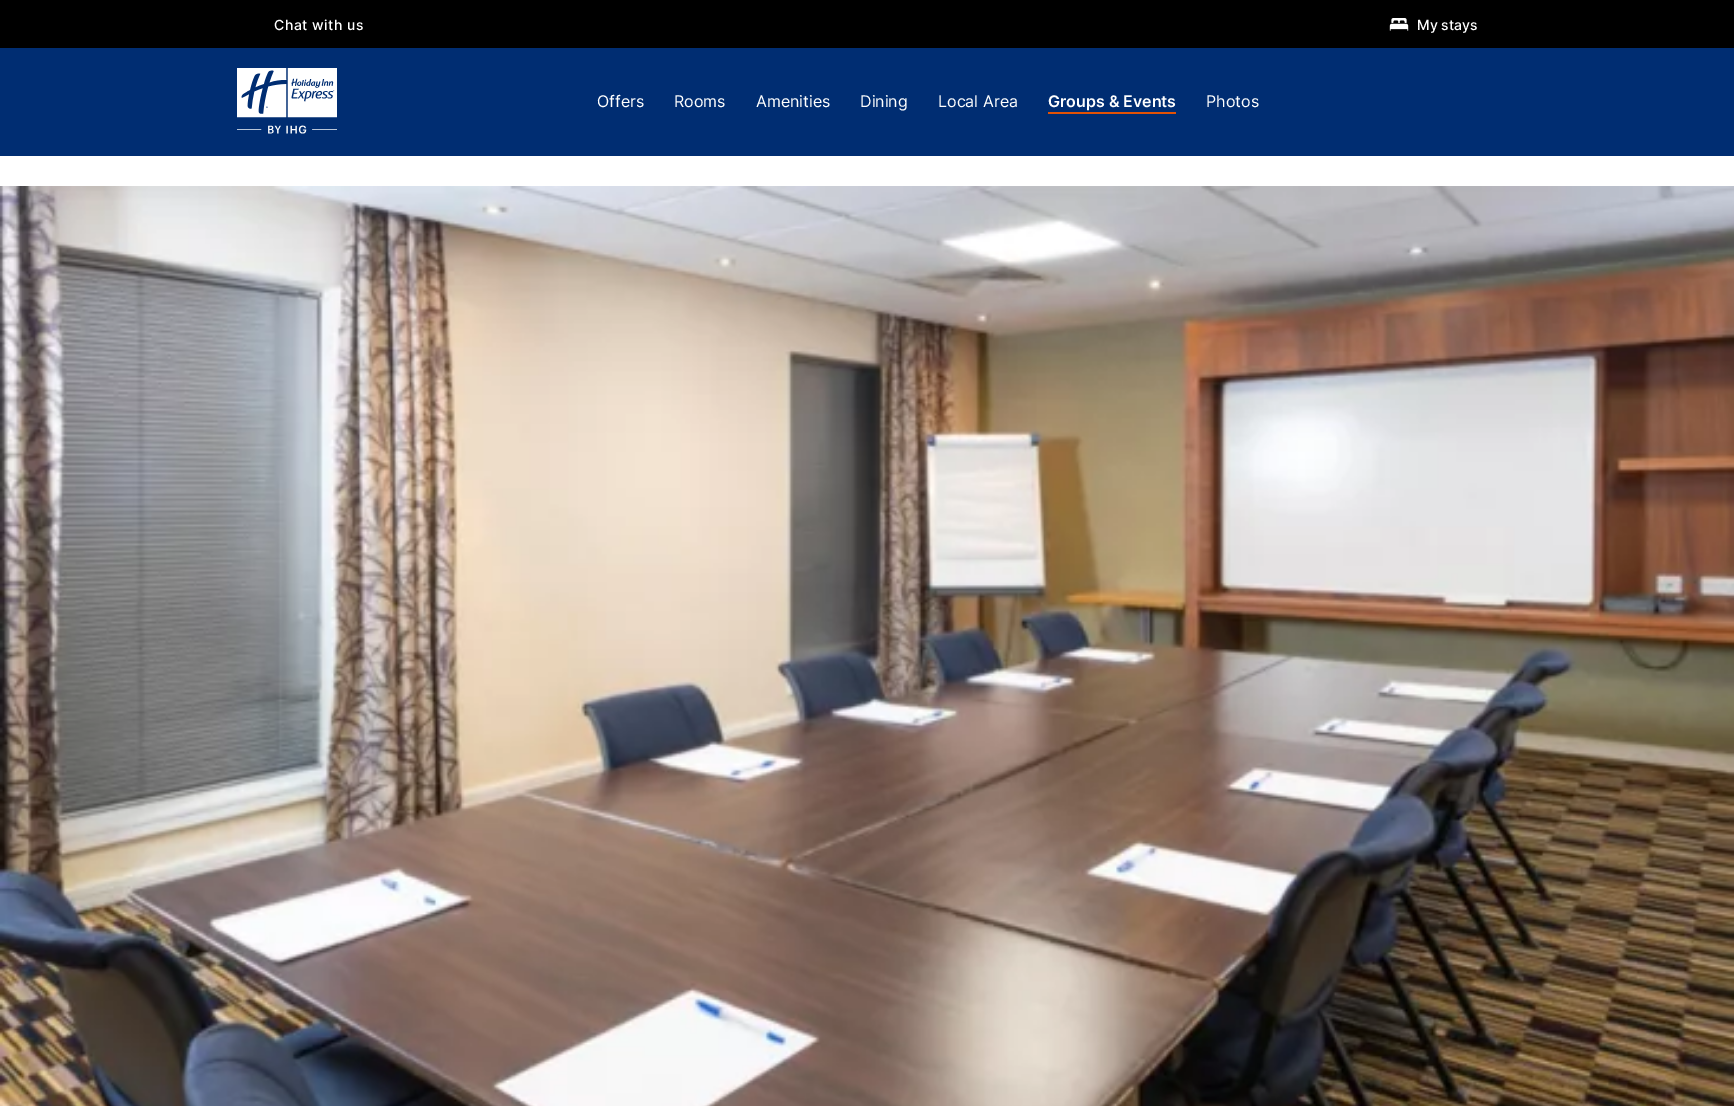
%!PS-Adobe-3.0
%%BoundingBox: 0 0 1734 1106
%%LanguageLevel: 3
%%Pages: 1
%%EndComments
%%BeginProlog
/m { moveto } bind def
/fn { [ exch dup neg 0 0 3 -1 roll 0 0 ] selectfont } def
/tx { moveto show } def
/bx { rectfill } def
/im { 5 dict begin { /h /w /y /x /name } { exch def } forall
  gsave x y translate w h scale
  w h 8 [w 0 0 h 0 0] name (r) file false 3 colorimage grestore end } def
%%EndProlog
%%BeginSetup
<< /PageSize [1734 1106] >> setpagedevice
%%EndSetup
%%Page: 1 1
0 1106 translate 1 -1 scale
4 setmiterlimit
1 setgray
0 0 1734 1106 bx
0 setgray
0 0 1734 48 bx
/Inter-Medium 14 fn
1 setgray
274 30 m 0.5 0 (Chat with us) ashow
(image0.raw) 1389 18 20 13 im
(My stays) 1417 30 tx
0 0.176 0.447 setrgbcolor
0 48 1734 108 bx
(image1.raw) 237 68 100 66 im
/Inter-Regular 16 fn
1 setgray
(Offers) 597 107 tx
(Rooms) 674 107 tx
(Amenities) 756 107 tx
(Dining) 860 107 tx
(Local Area) 938 107 tx
/Inter-SemiBold 16 fn
(Groups & Events) 1048 107 tx
0.89 0.322 0.02 setrgbcolor
1048 112 128 2 bx
/Inter-Regular 16 fn
1 setgray
(Photos) 1206 107 tx
(image2.raw) 0 186 1734 920 im
showpage
%%EOF
